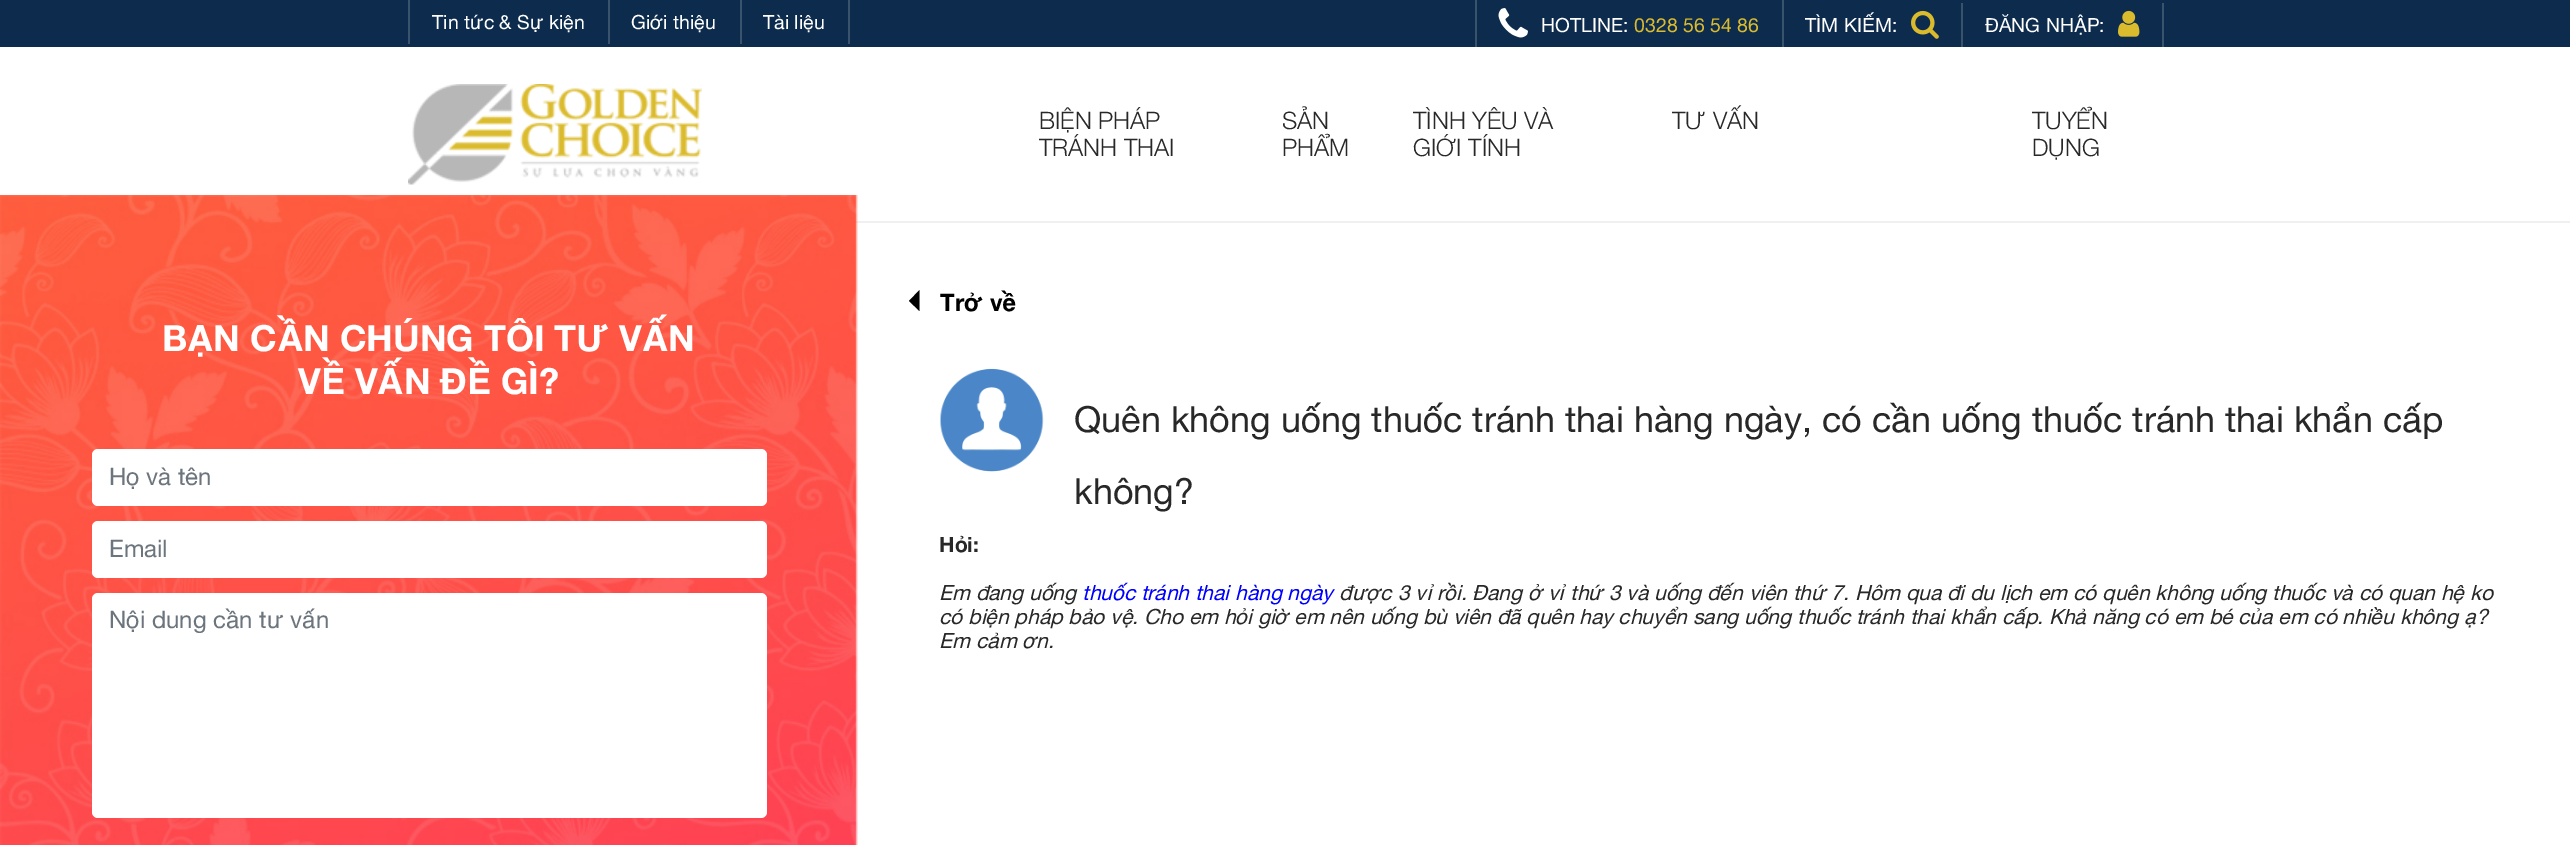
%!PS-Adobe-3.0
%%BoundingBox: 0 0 2570 845
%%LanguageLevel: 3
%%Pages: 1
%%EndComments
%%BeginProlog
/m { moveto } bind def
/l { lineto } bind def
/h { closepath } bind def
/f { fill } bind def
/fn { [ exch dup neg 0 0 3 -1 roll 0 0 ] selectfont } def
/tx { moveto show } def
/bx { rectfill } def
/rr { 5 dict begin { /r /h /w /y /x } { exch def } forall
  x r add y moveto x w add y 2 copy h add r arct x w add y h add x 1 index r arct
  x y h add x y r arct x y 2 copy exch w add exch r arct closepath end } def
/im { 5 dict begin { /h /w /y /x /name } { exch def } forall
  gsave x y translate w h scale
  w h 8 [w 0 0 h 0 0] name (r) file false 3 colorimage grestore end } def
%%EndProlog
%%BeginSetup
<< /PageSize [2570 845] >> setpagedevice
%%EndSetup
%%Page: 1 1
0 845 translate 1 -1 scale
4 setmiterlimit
1 setgray
0 0 2570 845 bx
0.051 0.173 0.302 setrgbcolor
0 0 2570 47 bx
0.227 0.325 0.427 setrgbcolor
608 0 2 44 bx
408 0 2 44 bx
/HelveticaNeue-Regular 19.5 fn
1 setgray
(Tin tức & Sự kiện) 432 29 tx
0.227 0.325 0.427 setrgbcolor
740 0 2 44 bx
1 setgray
(Giới thiệu) 631 29 tx
0.227 0.325 0.427 setrgbcolor
848 0 2 44 bx
1 setgray
(Tài liệu) 763 29 tx
0.227 0.325 0.427 setrgbcolor
1782 0 2 47 bx
1475 0 2 47 bx
(image0.raw) 1498 8 30 30 im
1 setgray
(HOTLINE:) 1541 32 tx
0.859 0.733 0.18 setrgbcolor
(0328 56 54 86) 1634 32 tx
0.227 0.325 0.427 setrgbcolor
1961 3 2 44 bx
1 setgray
(TÌM KIẾM:) 1805 32 tx
(image1.raw) 1911 10 28 29 im
0.227 0.325 0.427 setrgbcolor
2162 3 2 44 bx
1 setgray
(ĐĂNG NHẬP:) 1985 32 tx
(image2.raw) 2118 10 22 27 im
0.941 setgray
855 221 1715 2 bx
(image3.raw) 408 84 294 101 im
/HelveticaNeue-Light 24 fn
0.157 setgray
(BIỆN PHÁP) 1039 129 tx
(TRÁNH THAI) 1039 156 tx
(SẢN) 1282 129 tx
(PHẨM) 1282 156 tx
(TÌNH YÊU VÀ) 1413 129 tx
(GIỚI TÍNH) 1413 156 tx
(TƯ VẤN) 1672 129 tx
(TUYỂN) 2032 129 tx
(DỤNG) 2032 156 tx
(image4.raw) 0 195 858 650 im
/HelveticaNeue-Bold 36 fn
1 setgray
(BẠN CẦN CHÚNG TÔI TƯ VẤN) 162 351 tx
(VỀ VẤN ĐỀ GÌ?) 298 394 tx
92 449 675 57 6 rr f
/HelveticaNeue-Regular 24 fn
0.424 0.459 0.49 setrgbcolor
(Họ và tên) 109 485 tx
1 setgray
92 521 675 57 6 rr f
0.424 0.459 0.49 setrgbcolor
(Email) 109 557 tx
1 setgray
92 593 675 225 6 rr f
0.424 0.459 0.49 setrgbcolor
(Nội dung cần tư vấn) 109 628 tx
0 setgray
919.5 290 m 919.5 311 l 909 301 l h f
/HelveticaNeue-Bold 24 fn
(Trở về) 940 311 tx
(image5.raw) 940 368 104 104 im
/HelveticaNeue-Regular 36 fn
0.157 setgray
(Quên không uống thuốc tránh thai hàng ngày, có cần uống thuốc tránh thai khẩn cấp) 1074 432 tx
(không?) 1074 504 tx
/HelveticaNeue-Bold 21 fn
(Hỏi:) 939 552 tx
/HelveticaNeue-Italic 21 fn
(Em đang uống) 939 600 tx
0 0 1 setrgbcolor
(thuốc tránh thai hàng ngày) 1082 600 tx
0.157 setgray
(được 3 vỉ rồi. Đang ở vỉ thứ 3 và uống đến viên thứ 7. Hôm qua đi du lịch em có quên không uống thuốc và có quan hệ ko) 1339 600 tx
(có biện pháp bảo vệ. Cho em hỏi giờ em nên uống bù viên đã quên hay chuyển sang uống thuốc tránh thai khẩn cấp. Khả năng có em bé của em có nhiều không ạ?) 939 624 tx
(Em cảm ơn.) 939 648 tx
showpage
%%EOF
